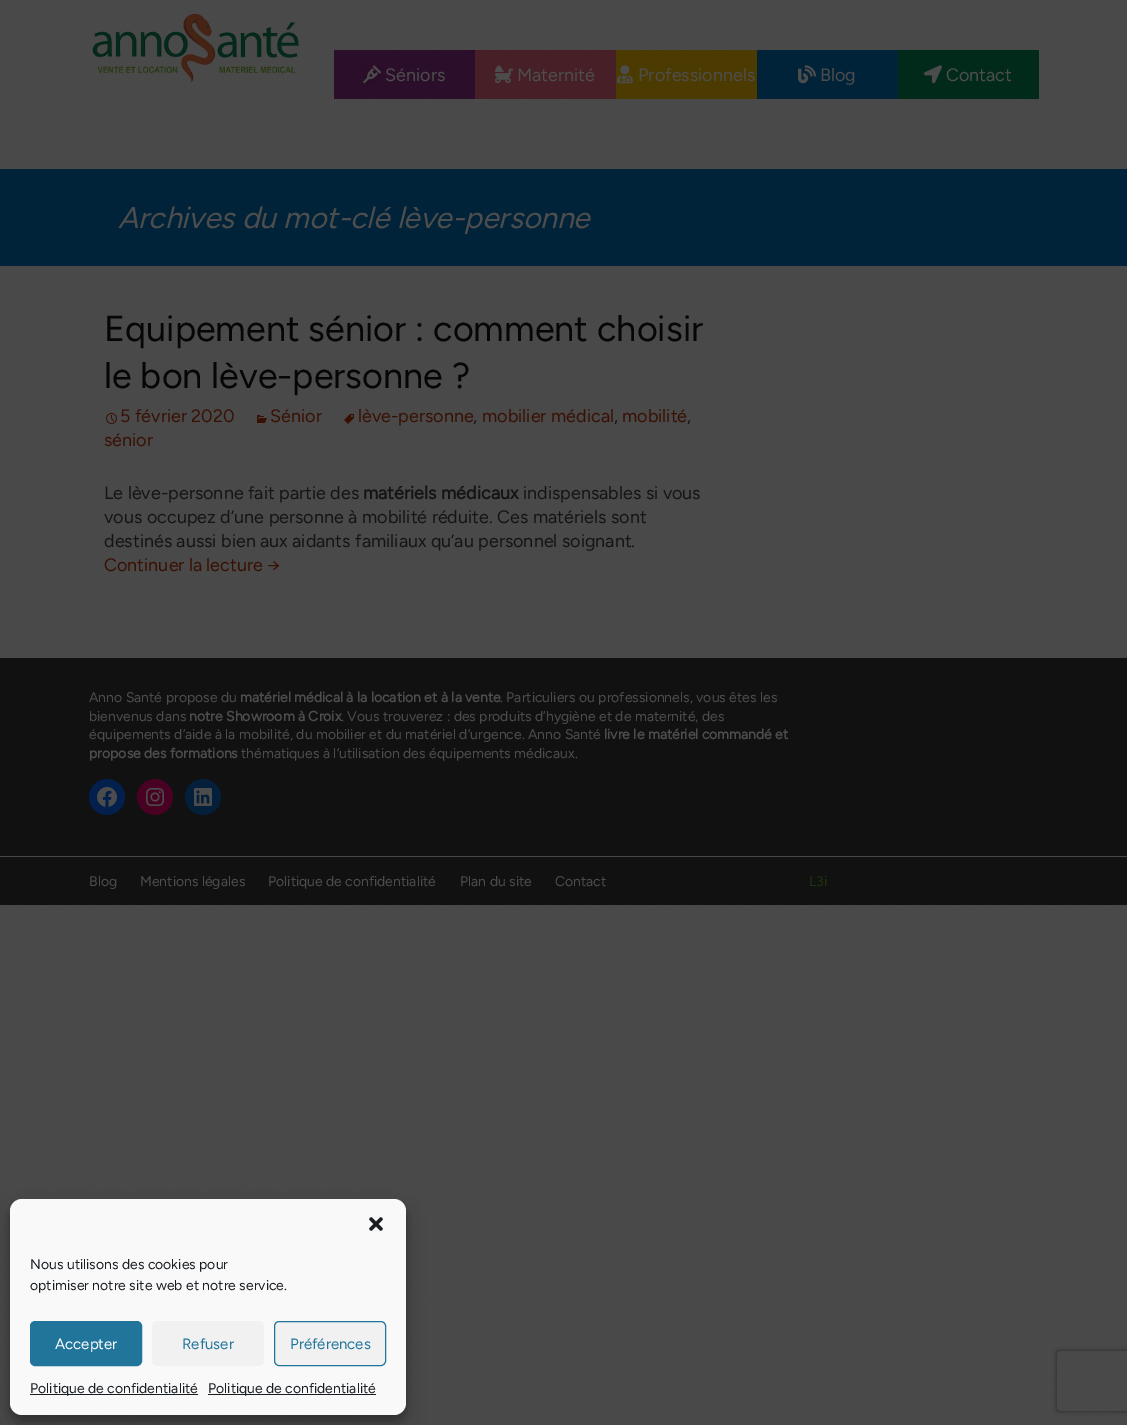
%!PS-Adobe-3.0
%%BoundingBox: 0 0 1127 1425
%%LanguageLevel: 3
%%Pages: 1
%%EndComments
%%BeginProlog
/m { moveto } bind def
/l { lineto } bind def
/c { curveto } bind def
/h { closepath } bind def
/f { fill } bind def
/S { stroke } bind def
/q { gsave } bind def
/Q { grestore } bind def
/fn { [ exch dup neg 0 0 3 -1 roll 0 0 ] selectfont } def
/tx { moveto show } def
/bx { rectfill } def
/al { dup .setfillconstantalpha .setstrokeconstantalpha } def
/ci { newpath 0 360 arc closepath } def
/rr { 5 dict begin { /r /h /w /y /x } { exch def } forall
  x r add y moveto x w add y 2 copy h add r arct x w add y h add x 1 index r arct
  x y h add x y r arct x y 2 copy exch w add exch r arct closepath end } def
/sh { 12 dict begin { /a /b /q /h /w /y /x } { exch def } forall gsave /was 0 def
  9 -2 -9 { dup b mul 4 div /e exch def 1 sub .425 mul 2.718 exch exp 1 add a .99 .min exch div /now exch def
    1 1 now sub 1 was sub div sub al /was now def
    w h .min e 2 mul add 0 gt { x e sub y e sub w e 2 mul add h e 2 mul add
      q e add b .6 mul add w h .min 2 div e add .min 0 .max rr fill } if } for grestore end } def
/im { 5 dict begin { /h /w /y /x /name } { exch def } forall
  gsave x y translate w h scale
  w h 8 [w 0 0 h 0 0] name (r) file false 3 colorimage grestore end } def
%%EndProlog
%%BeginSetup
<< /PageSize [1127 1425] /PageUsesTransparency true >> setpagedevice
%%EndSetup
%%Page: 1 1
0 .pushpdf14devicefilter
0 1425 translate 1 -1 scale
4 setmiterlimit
1 setgray
0 0 1127 1425 bx
(image0.raw) 0 0 1127 1425 im
(image1.raw) 92 13 207 70 im
0.169 0.055 0.161 setrgbcolor
334 50 141 49 bx
(image2.raw) 363 65 18 19 im
/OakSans-Regular 18 fn
0.302 setgray
(Séniors) 385 81 tx
0.278 0.122 0.153 setrgbcolor
475 50 141 49 bx
(image3.raw) 495 65 18 19 im
0.302 setgray
(Maternité) 517 81 tx
0.298 0.231 0 setrgbcolor
616 50 141 49 bx
(image4.raw) 617 65 16 19 im
0.302 setgray
(Professionnels) 638 81 tx
0 0.137 0.227 setrgbcolor
757 50 141 49 bx
(image5.raw) 798 65 18 19 im
0.302 setgray
(Blog) 820 81 tx
0.008 0.165 0.106 setrgbcolor
898 50 141 49 bx
(image6.raw) 924 65 18 19 im
0.302 setgray
(Contact) 946 81 tx
0 0.137 0.227 setrgbcolor
0 169 1127 97 bx
/OakSans-Italic 30 fn
0.302 setgray
(Archives du mot-clé lève-personne) 118 228 tx
/OakSans-Regular 36 fn
0.024 0.024 0.02 setrgbcolor
(Equipement sénior : comment choisir) 104 341 tx
(le bon lève-personne ?) 104 388 tx
(image7.raw) 344 414 10 10 im
/OakSans-Regular 18 fn
0.22 0.063 0.012 setrgbcolor
(lève-personne) 358 422 tx
0.078 setgray
(,) 473 422 tx
0.22 0.063 0.012 setrgbcolor
(mobilier médical) 482 422 tx
0.078 setgray
(,) 614 422 tx
0.22 0.063 0.012 setrgbcolor
(mobilité) 622 422 tx
0.078 setgray
(,) 687 422 tx
0.22 0.063 0.012 setrgbcolor
(sénior) 104 446 tx
(image8.raw) 106 413 11 11 im
(5 février 2020) 120 422 tx
(image9.raw) 257 415 10 8 im
(Sénior) 270 422 tx
0.078 setgray
(Le lève-personne fait partie des) 104 499 tx
/OakSans-Bold 18 fn
(matériels médicaux) 363 499 tx
/OakSans-Regular 18 fn
(indispensables si vous) 523 499 tx
(vous occupez d’une personne à mobilité réduite. Ces matériels sont) 104 523 tx
(destinés aussi bien aux aidants familiaux qu’au personnel soignant.) 104 547 tx
0.22 0.063 0.012 setrgbcolor
(Continuer la lecture →) 104 571 tx
0.067 setgray
0 658 1127 247 bx
0.282 setgray
0 856 1127 1 bx
/OakSans-Regular 14 fn
0.302 setgray
(Anno Santé propose du) 89 702 tx
/OakSans-Bold 14 fn
(matériel médical à la location et à la vente) 240 702 tx
/OakSans-Regular 14 fn
(. Particuliers ou professionnels, vous êtes les) 500 702 tx
(bienvenus dans) 89 721 tx
/OakSans-Bold 14 fn
(notre Showroom à Croix) 189 721 tx
/OakSans-Regular 14 fn
(. Vous trouverez : des produits d’hygiène et de maternité, des) 341 721 tx
(équipements d’aide à la mobilité, du mobilier et du matériel d’urgence. Anno Santé) 89 739 tx
/OakSans-Bold 14 fn
(livre le matériel commandé et) 604 739 tx
(propose des formations) 89 758 tx
/OakSans-Regular 14 fn
(thématiques à l’utilisation des équipements médicaux.) 241 758 tx
0.008 0.122 0.302 setrgbcolor
107 797 18 ci f
(image10.raw) 97 787 20 20 im
0.282 0 0.137 setrgbcolor
155 797 18 ci f
(image11.raw) 146 788 18 18 im
0.016 0.122 0.227 setrgbcolor
203 797 18 ci f
(image12.raw) 194 788 18 18 im
0.302 setgray
(Blog) 89 886 tx
(Mentions légales) 140 886 tx
(Politique de confidentialité) 268 886 tx
(Plan du site) 460 886 tx
(Contact) 555 886 tx
0.118 0.212 0.039 setrgbcolor
(L3i) 809 886 tx
0 setgray
10 1205 396 216 12 3 0.23 sh
10 1209 396 216 12 10 0.19 sh
0.976 setgray
10 1199 396 216 12 rr f
(image13.raw) 369 1217 14 14 im
0.098 0.118 0.137 setrgbcolor
(Nous utilisons des cookies pour) 30 1269 tx
(optimiser notre site web et notre service.) 30 1290 tx
0.129 0.459 0.608 setrgbcolor
30.5 1321.5 111 44 4.5 rr q f Q
S
/OakSans-Regular 15 fn
1 setgray
(Accepter) 55 1349 tx
0.945 setgray
152 1321 112 45 5 rr f
0.129 0.459 0.608 setrgbcolor
(Refuser) 182 1349 tx
0.945 setgray
274.5 1321.5 111 44 4.5 rr q f Q
0.129 0.459 0.608 setrgbcolor
S
(Préférences) 290 1349 tx
0.098 0.118 0.137 setrgbcolor
30 1394 168 1 bx
/OakSans-Regular 14 fn
(Politique de confidentialité) 30 1393 tx
208 1394 168 1 bx
(Politique de confidentialité) 208 1393 tx
q
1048 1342 m 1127 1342 l 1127 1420 l 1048 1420 l h 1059 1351 m 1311 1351 l 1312 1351 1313 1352 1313 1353 c 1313 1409 l 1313 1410 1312 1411 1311 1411 c 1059 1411 l 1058 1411 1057 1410 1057 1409 c 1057 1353 l 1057 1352 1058 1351 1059 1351 c h eoclip newpath
0.149 setgray
1057 1351 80 60 2 2.5 1 sh
Q
.poppdf14devicefilter showpage
%%EOF
